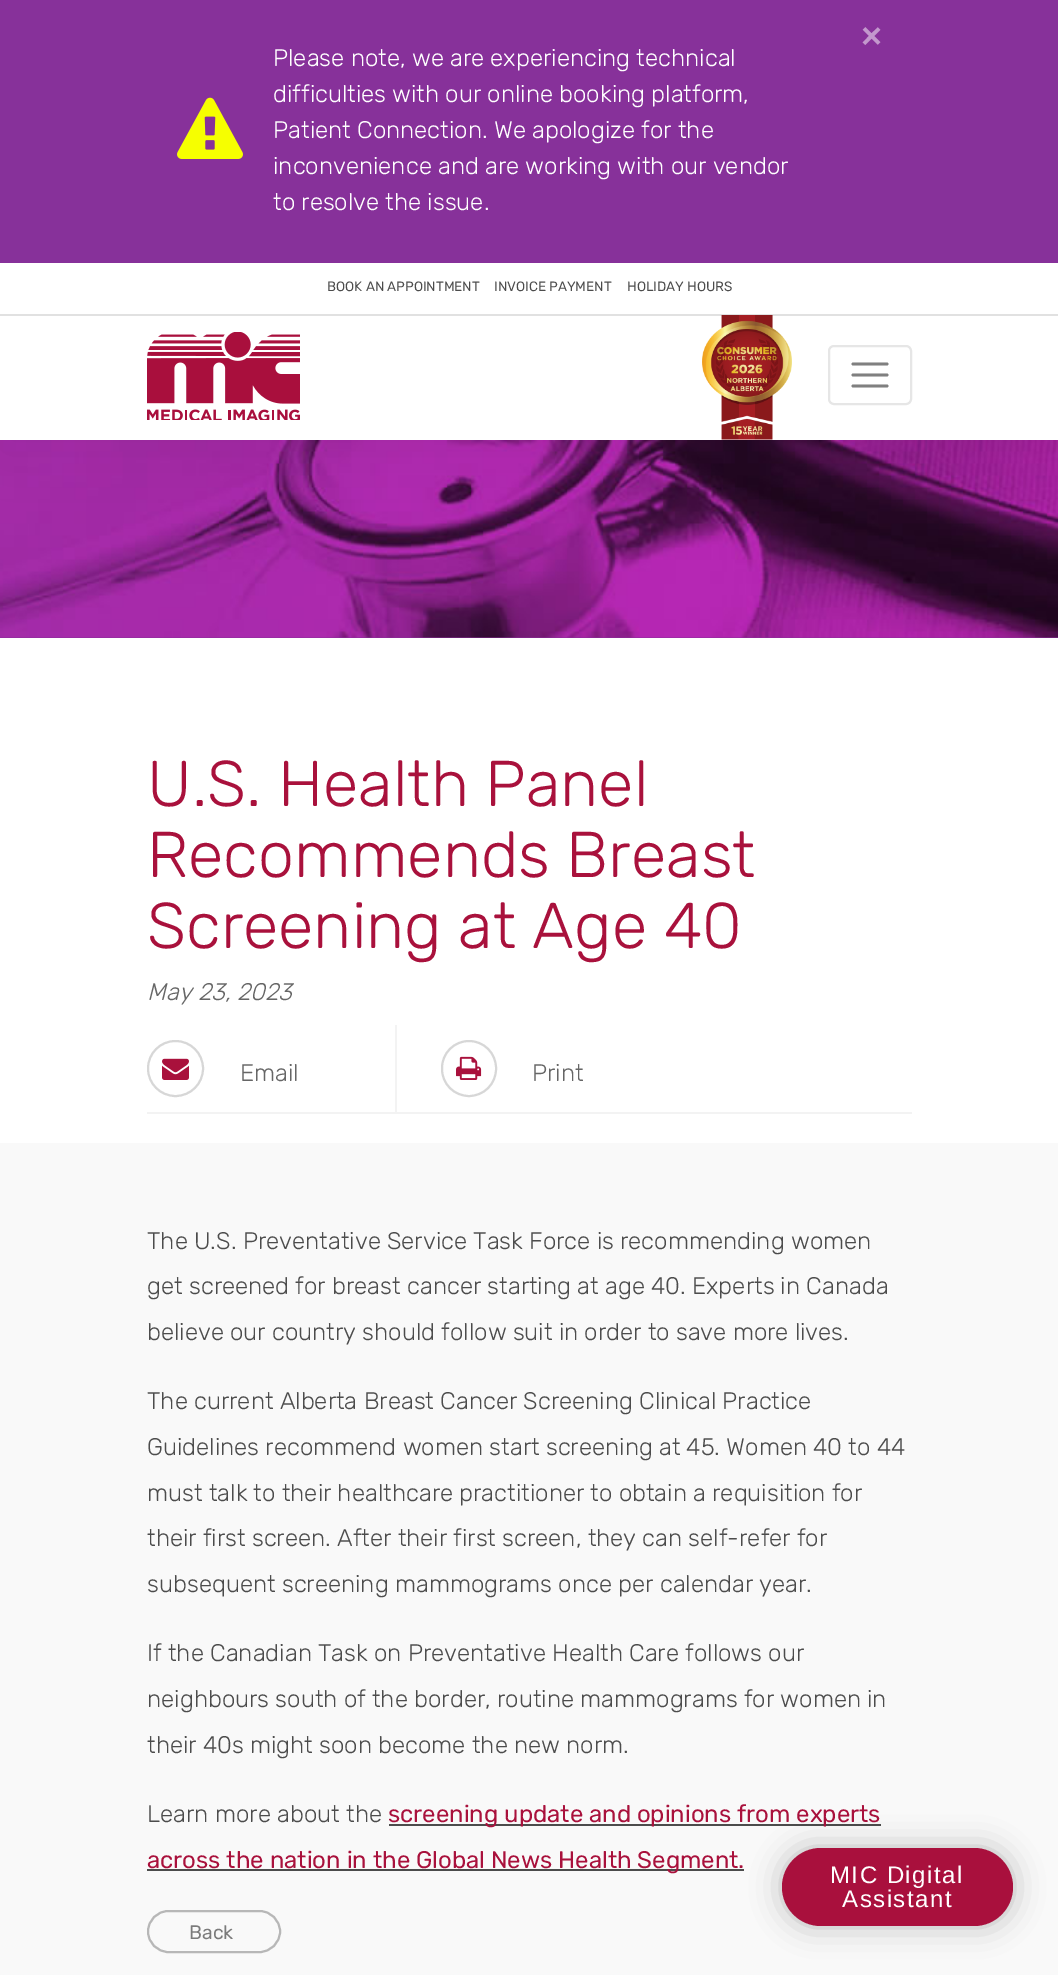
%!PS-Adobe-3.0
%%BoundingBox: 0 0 1058 1975
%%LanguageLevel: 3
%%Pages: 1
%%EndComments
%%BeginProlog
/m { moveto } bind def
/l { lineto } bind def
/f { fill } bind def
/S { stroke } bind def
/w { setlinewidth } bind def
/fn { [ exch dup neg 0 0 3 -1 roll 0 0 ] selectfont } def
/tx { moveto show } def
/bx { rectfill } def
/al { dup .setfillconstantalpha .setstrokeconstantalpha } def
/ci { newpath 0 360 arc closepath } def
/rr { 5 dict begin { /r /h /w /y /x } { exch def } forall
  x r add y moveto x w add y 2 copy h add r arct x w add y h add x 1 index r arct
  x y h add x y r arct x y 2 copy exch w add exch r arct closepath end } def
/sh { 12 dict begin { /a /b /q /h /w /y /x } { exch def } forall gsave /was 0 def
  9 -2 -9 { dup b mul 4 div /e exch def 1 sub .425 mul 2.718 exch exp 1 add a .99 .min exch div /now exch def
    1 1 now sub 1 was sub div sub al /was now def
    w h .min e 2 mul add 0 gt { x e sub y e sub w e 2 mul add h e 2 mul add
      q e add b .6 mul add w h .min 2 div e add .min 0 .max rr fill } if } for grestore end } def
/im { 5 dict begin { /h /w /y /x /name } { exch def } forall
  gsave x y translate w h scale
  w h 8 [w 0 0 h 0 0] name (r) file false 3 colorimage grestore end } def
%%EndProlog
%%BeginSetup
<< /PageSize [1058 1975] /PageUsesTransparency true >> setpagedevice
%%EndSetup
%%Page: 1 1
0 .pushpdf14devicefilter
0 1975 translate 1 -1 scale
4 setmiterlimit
1 setgray
0 0 1058 1975 bx
0.533 0.184 0.6 setrgbcolor
0 637 1058 1 bx
(image3.raw) 0 440 1058 198 im
0 setgray
0 11 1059 439 0 30 0.05 sh
1 setgray
0 263 1058 177 bx
0.529 0.192 0.604 setrgbcolor
0 0 1058 263 bx
/LiberationSans-Bold 36 fn
0.765 0.596 0.804 setrgbcolor
(×) 861 48 tx
(image0.raw) 177 97 66 62 im
/Rubik-Light 24 fn
1 setgray
(Please note, we are experiencing technical) 273 66 tx
(difficulties with our online booking platform,) 273 102 tx
(Patient Connection. We apologize for the) 273 138 tx
(inconvenience and are working with our vendor) 273 174 tx
(to resolve the issue.) 273 210 tx
0.882 setgray
0 314 1058 2 bx
/Rubik-Regular 13.5 fn
0.298 setgray
(BOOK AN APPOINTMENT) 327 291 tx
(INVOICE PAYMENT) 494 291 tx
(HOLIDAY HOURS) 627 291 tx
(image1.raw) 147 332 153 88 im
(image2.raw) 702 315 90 125 im
0.902 setgray
2 w
829 346 82 58 5 rr S
0.502 setgray
2.8 w
1 setlinecap
853 364 m 887 364 l 853 375 m 887 375 l 853 386 m 887 386 l S
/Rubik-Light 64.5 fn
0.663 0.067 0.235 setrgbcolor
(U.S. Health Panel) 147 806 tx
(Recommends Breast) 147 877 tx
(Screening at Age 40) 147 948 tx
/Rubik-LightItalic 24 fn
0.4 setgray
(May 23, 2023) 147 1000 tx
0.953 setgray
147 1112 765 2 bx
0.843 setgray
2 w
0 setlinecap
175.5 1068.5 27.5 ci S
(image4.raw) 162 1058 27 22 im
/Rubik-Light 24 fn
0.4 setgray
(Email) 240 1081 tx
0.953 setgray
395 1025 2 87 bx
0.843 setgray
442 1041 54 55 27 rr S
(image5.raw) 456 1056 26 24 im
0.4 setgray
(Print) 532 1081 tx
0.976 setgray
0 1143 1058 832 bx
0.298 setgray
(The U.S. Preventative Service Task Force is recommending women) 147 1249 tx
(get screened for breast cancer starting at age 40. Experts in Canada) 147 1294 tx
(believe our country should follow suit in order to save more lives.) 147 1340 tx
(The current Alberta Breast Cancer Screening Clinical Practice) 147 1409 tx
(Guidelines recommend women start screening at 45. Women 40 to 44) 147 1455 tx
(must talk to their healthcare practitioner to obtain a requisition for) 147 1501 tx
(their first screen. After their first screen, they can self-refer for) 147 1546 tx
(subsequent screening mammograms once per calendar year.) 147 1592 tx
(If the Canadian Task on Preventative Health Care follows our) 147 1661 tx
(neighbours south of the border, routine mammograms for women in) 147 1707 tx
(their 40s might soon become the new norm.) 147 1753 tx
(Learn more about the) 147 1822 tx
389 1824 492 2 bx
/Rubik-Regular 24 fn
0.663 0.067 0.235 setrgbcolor
(screening update and opinions from experts) 388 1822 tx
0.298 setgray
147 1869 597 2 bx
0.663 0.067 0.235 setrgbcolor
(across the nation in the Global News Health Segment.) 147 1868 tx
0.718 setgray
148 1911 132 41 20.5 rr S
/Rubik-Regular 19.5 fn
0.482 setgray
(Back) 189 1939 tx
0 setgray
782 1848 231 78 39 15 0.25 sh
0.663 0.063 0.239 setrgbcolor
782 1848 231 78 39 rr f
/LiberationSans-Regular 24 fn
1 setgray
830 1883 m 1.5 0 (MIC Digital) ashow
842 1907 m 1.5 0 (Assistant) ashow
.poppdf14devicefilter showpage
%%EOF
